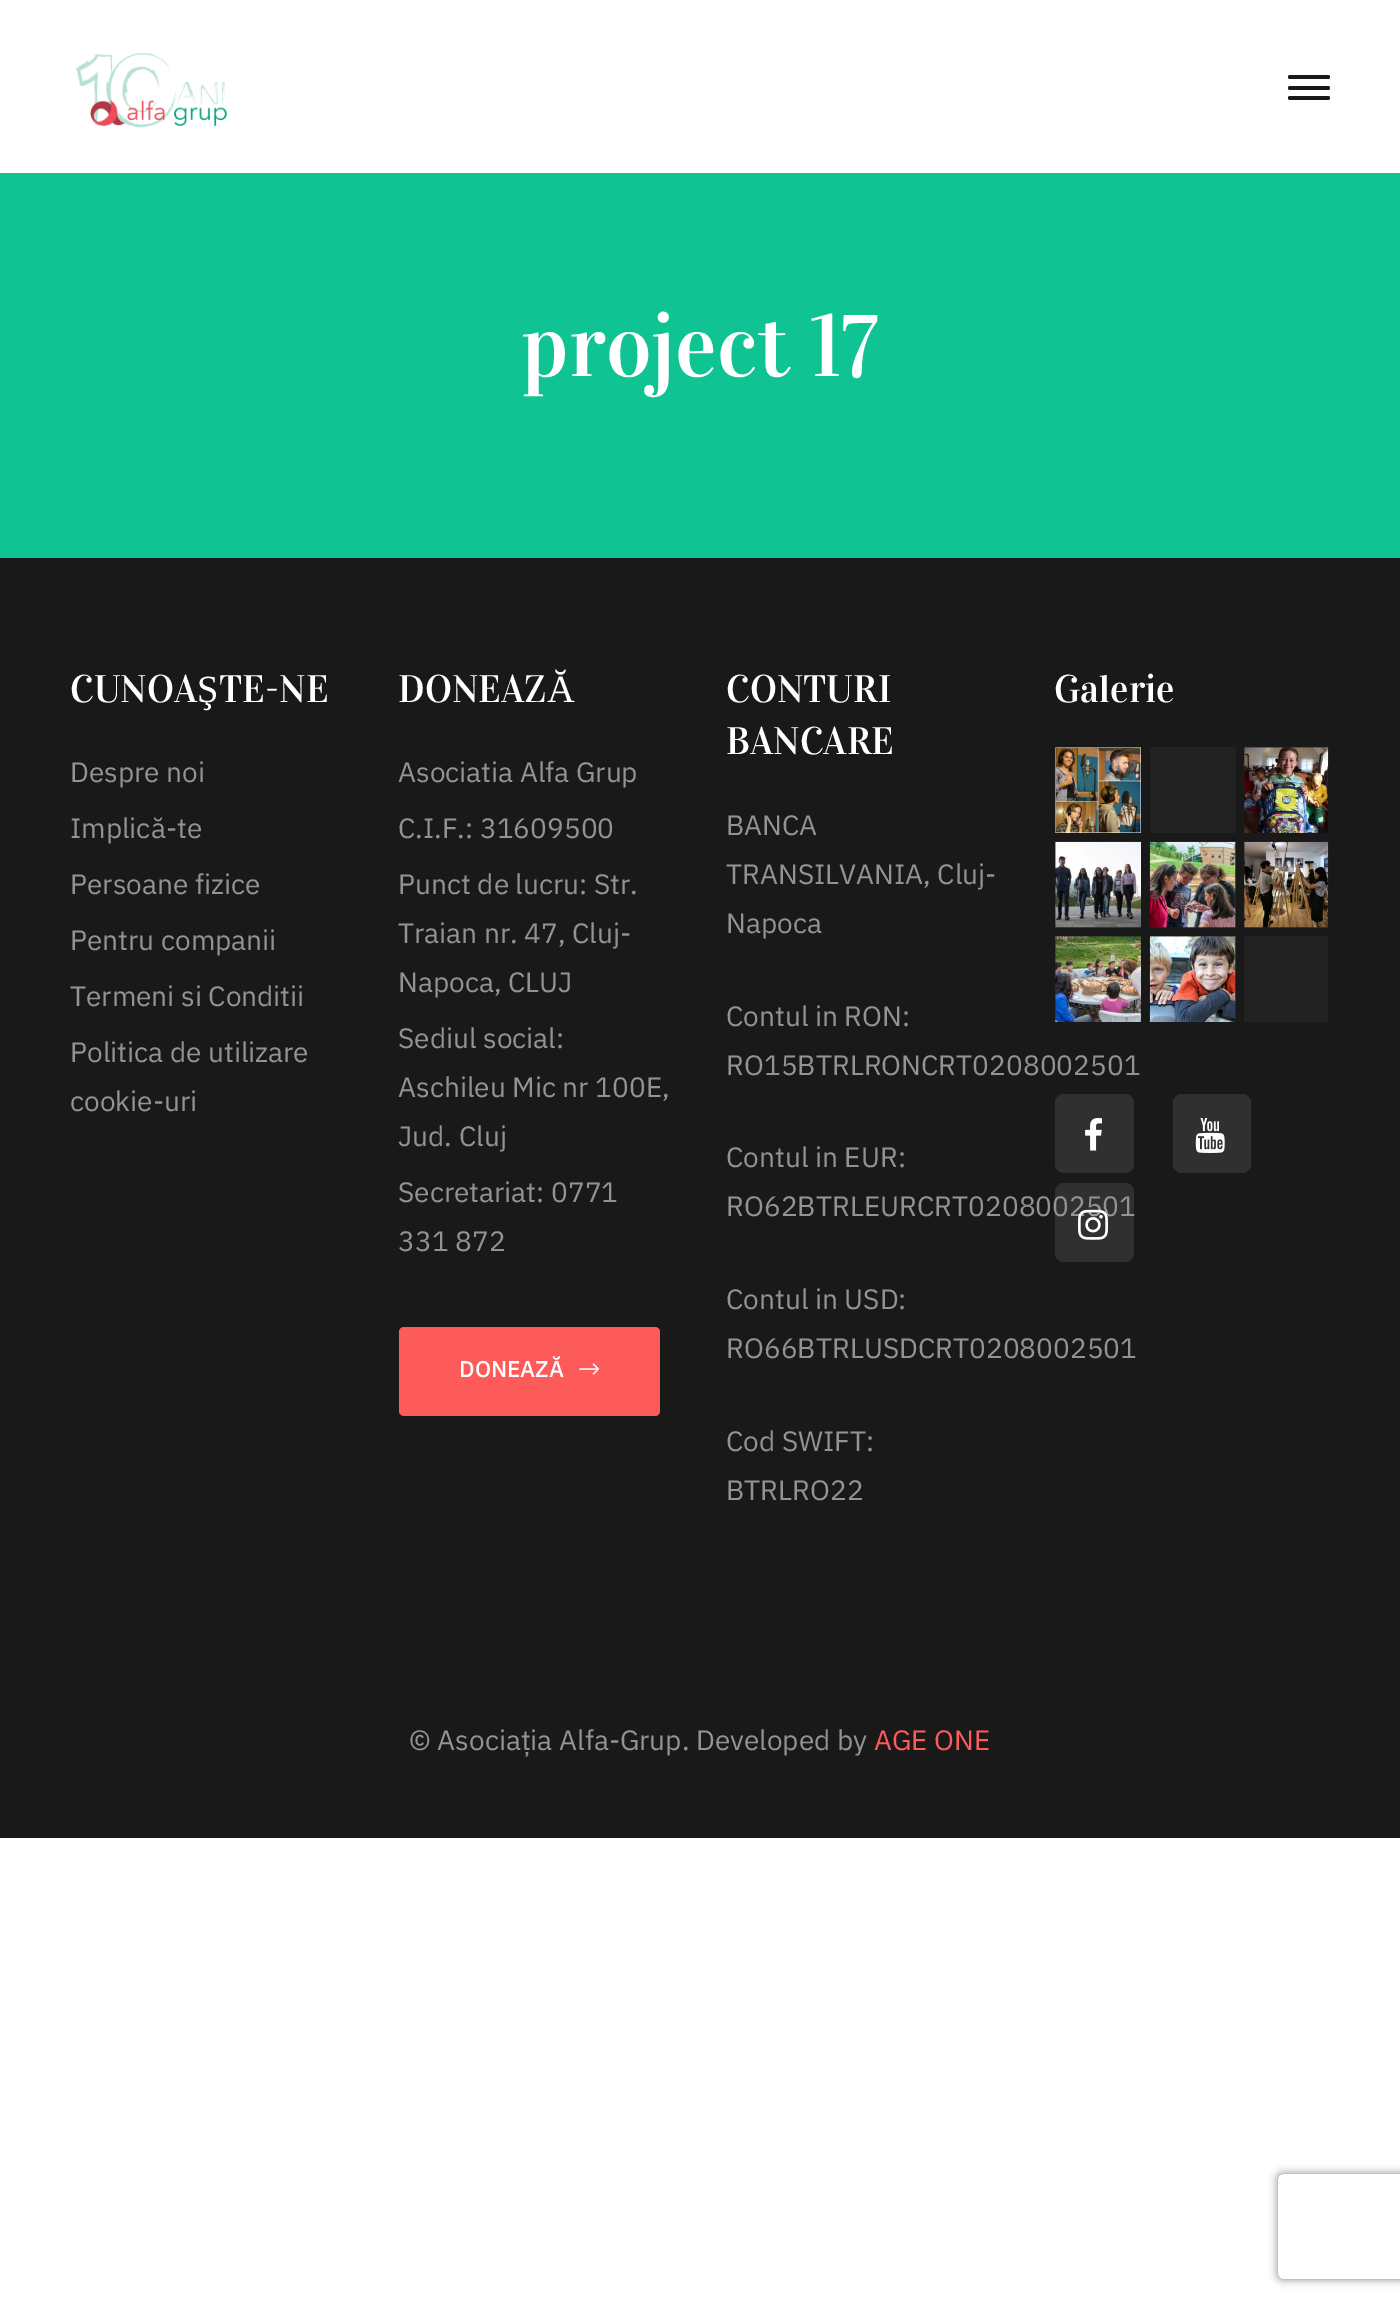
%!PS-Adobe-3.0
%%BoundingBox: 0 0 1400 2303
%%LanguageLevel: 3
%%Pages: 1
%%EndComments
%%BeginProlog
/m { moveto } bind def
/l { lineto } bind def
/c { curveto } bind def
/h { closepath } bind def
/f { fill } bind def
/q { gsave } bind def
/Q { grestore } bind def
/fn { [ exch dup neg 0 0 3 -1 roll 0 0 ] selectfont } def
/tx { moveto show } def
/bx { rectfill } def
/al { dup .setfillconstantalpha .setstrokeconstantalpha } def
/rr { 5 dict begin { /r /h /w /y /x } { exch def } forall
  x r add y moveto x w add y 2 copy h add r arct x w add y h add x 1 index r arct
  x y h add x y r arct x y 2 copy exch w add exch r arct closepath end } def
/sh { 12 dict begin { /a /b /q /h /w /y /x } { exch def } forall gsave /was 0 def
  9 -2 -9 { dup b mul 4 div /e exch def 1 sub .425 mul 2.718 exch exp 1 add a .99 .min exch div /now exch def
    1 1 now sub 1 was sub div sub al /was now def
    w h .min e 2 mul add 0 gt { x e sub y e sub w e 2 mul add h e 2 mul add
      q e add b .6 mul add w h .min 2 div e add .min 0 .max rr fill } if } for grestore end } def
/im { 5 dict begin { /h /w /y /x /name } { exch def } forall
  gsave x y translate w h scale
  w h 8 [w 0 0 h 0 0] name (r) file false 3 colorimage grestore end } def
%%EndProlog
%%BeginSetup
<< /PageSize [1400 2303] /PageUsesTransparency true >> setpagedevice
%%EndSetup
%%Page: 1 1
0 .pushpdf14devicefilter
0 2303 translate 1 -1 scale
4 setmiterlimit
1 setgray
0 0 1400 2303 bx
(image0.raw) 75 51 152 78 im
0.098 setgray
1288 75 42 4 2 rr f
1288 86 42 4 2 rr f
1288 96 42 4 2 rr f
0.059 0.765 0.573 setrgbcolor
0 173 1400 385 bx
/Vidaloka-Regular 87.5 fn
1 setgray
(project 17) 521 376 tx
0.098 setgray
0 558 1400 1280 bx
/Vidaloka-Regular 38.5 fn
1 setgray
(CUNOA) 70 702 tx
/LiberationSerif-Regular 38.5 fn
(Ş) 197 702 tx
/Vidaloka-Regular 38.5 fn
(TE-NE) 219 702 tx
/IBMPlexSans-Regular 28 fn
0.576 setgray
(Despre noi) 70 782 tx
(Implică-te) 70 838 tx
(Persoane fizice) 70 894 tx
(Pentru companii) 70 950 tx
(Termeni si Conditii) 70 1006 tx
(Politica de utilizare) 70 1062 tx
(cookie-uri) 70 1111 tx
/Vidaloka-Regular 38.5 fn
1 setgray
(DONEAZ) 398 702 tx
/LiberationSerif-Regular 38.5 fn
(Ă) 547 702 tx
/IBMPlexSans-Regular 28 fn
0.576 setgray
(Asociatia Alfa Grup) 398 782 tx
(C.I.F.: 31609500) 398 838 tx
(Punct de lucru: Str.) 398 894 tx
(Traian nr. 47, Cluj-) 398 943 tx
(Napoca, CLUJ) 398 992 tx
(Sediul social:) 398 1048 tx
(Aschileu Mic nr 100E,) 398 1097 tx
(Jud. Cluj) 398 1146 tx
(Secretariat: 0771) 398 1202 tx
(331 872) 398 1251 tx
0.992 0.353 0.353 setrgbcolor
399 1327 261 89 5 rr f
/IBMPlexSans-Medium 22.75 fn
1 setgray
(DONEAZĂ) 459 1377 tx
(image1.raw) 579 1363 21 12 im
/Vidaloka-Regular 38.5 fn
(Galerie) 1054 702 tx
0.133 setgray
1055 747 86 86 bx
(image2.raw) 1055 747 86 86 im
1150 747 86 86 bx
1244 747 84 86 bx
(image3.raw) 1244 747 85 86 im
1055 842 86 86 bx
(image4.raw) 1055 841 86 87 im
1150 842 86 86 bx
(image5.raw) 1149 841 87 87 im
1244 842 84 86 bx
(image6.raw) 1244 841 85 87 im
1055 936 86 86 bx
(image7.raw) 1055 936 86 86 im
1150 936 86 86 bx
(image8.raw) 1149 936 87 86 im
1244 936 84 86 bx
0.188 setgray
1055 1094 79 79 9 rr f
(image9.raw) 1085 1118 17 33 im
1173 1094 78 79 9 rr f
(image10.raw) 1195 1118 30 35 im
0.1 al
1 setgray
1055 1183 79 79 9 rr f
/IBMPlexSans-Regular 28 fn
1 al
0.576 setgray
(RO62BTRLEURCRT0208002501) 726 1216 tx
(image11.raw) 1078 1209 30 31 im
/Vidaloka-Regular 38.5 fn
1 setgray
(CONTURI) 726 702 tx
(BANCARE) 726 754 tx
/IBMPlexSans-Regular 28 fn
0.576 setgray
(BANCA) 726 835 tx
(TRANSILVANIA, Cluj-) 726 884 tx
(Napoca) 726 933 tx
(Contul in RON:) 726 1026 tx
(RO15BTRLRONCRT0208002501) 726 1075 tx
(Contul in EUR:) 726 1167 tx
(Contul in USD:) 726 1309 tx
(RO66BTRLUSDCRT0208002501) 726 1358 tx
(Cod SWIFT:) 726 1451 tx
(BTRLRO22) 726 1500 tx
(© Asociația Alfa-Grup. Developed by) 409 1750 tx
0.992 0.353 0.353 setrgbcolor
(AGE ONE) 874 1750 tx
q
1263 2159 m 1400 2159 l 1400 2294 l 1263 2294 l h 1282 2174 m 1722 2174 l 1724 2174 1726 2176 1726 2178 c 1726 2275 l 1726 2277 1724 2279 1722 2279 c 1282 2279 l 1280 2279 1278 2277 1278 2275 c 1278 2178 l 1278 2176 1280 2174 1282 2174 c h eoclip newpath
0.502 setgray
1278 2174 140 105 4 4.5 1 sh
Q
.poppdf14devicefilter showpage
%%EOF
